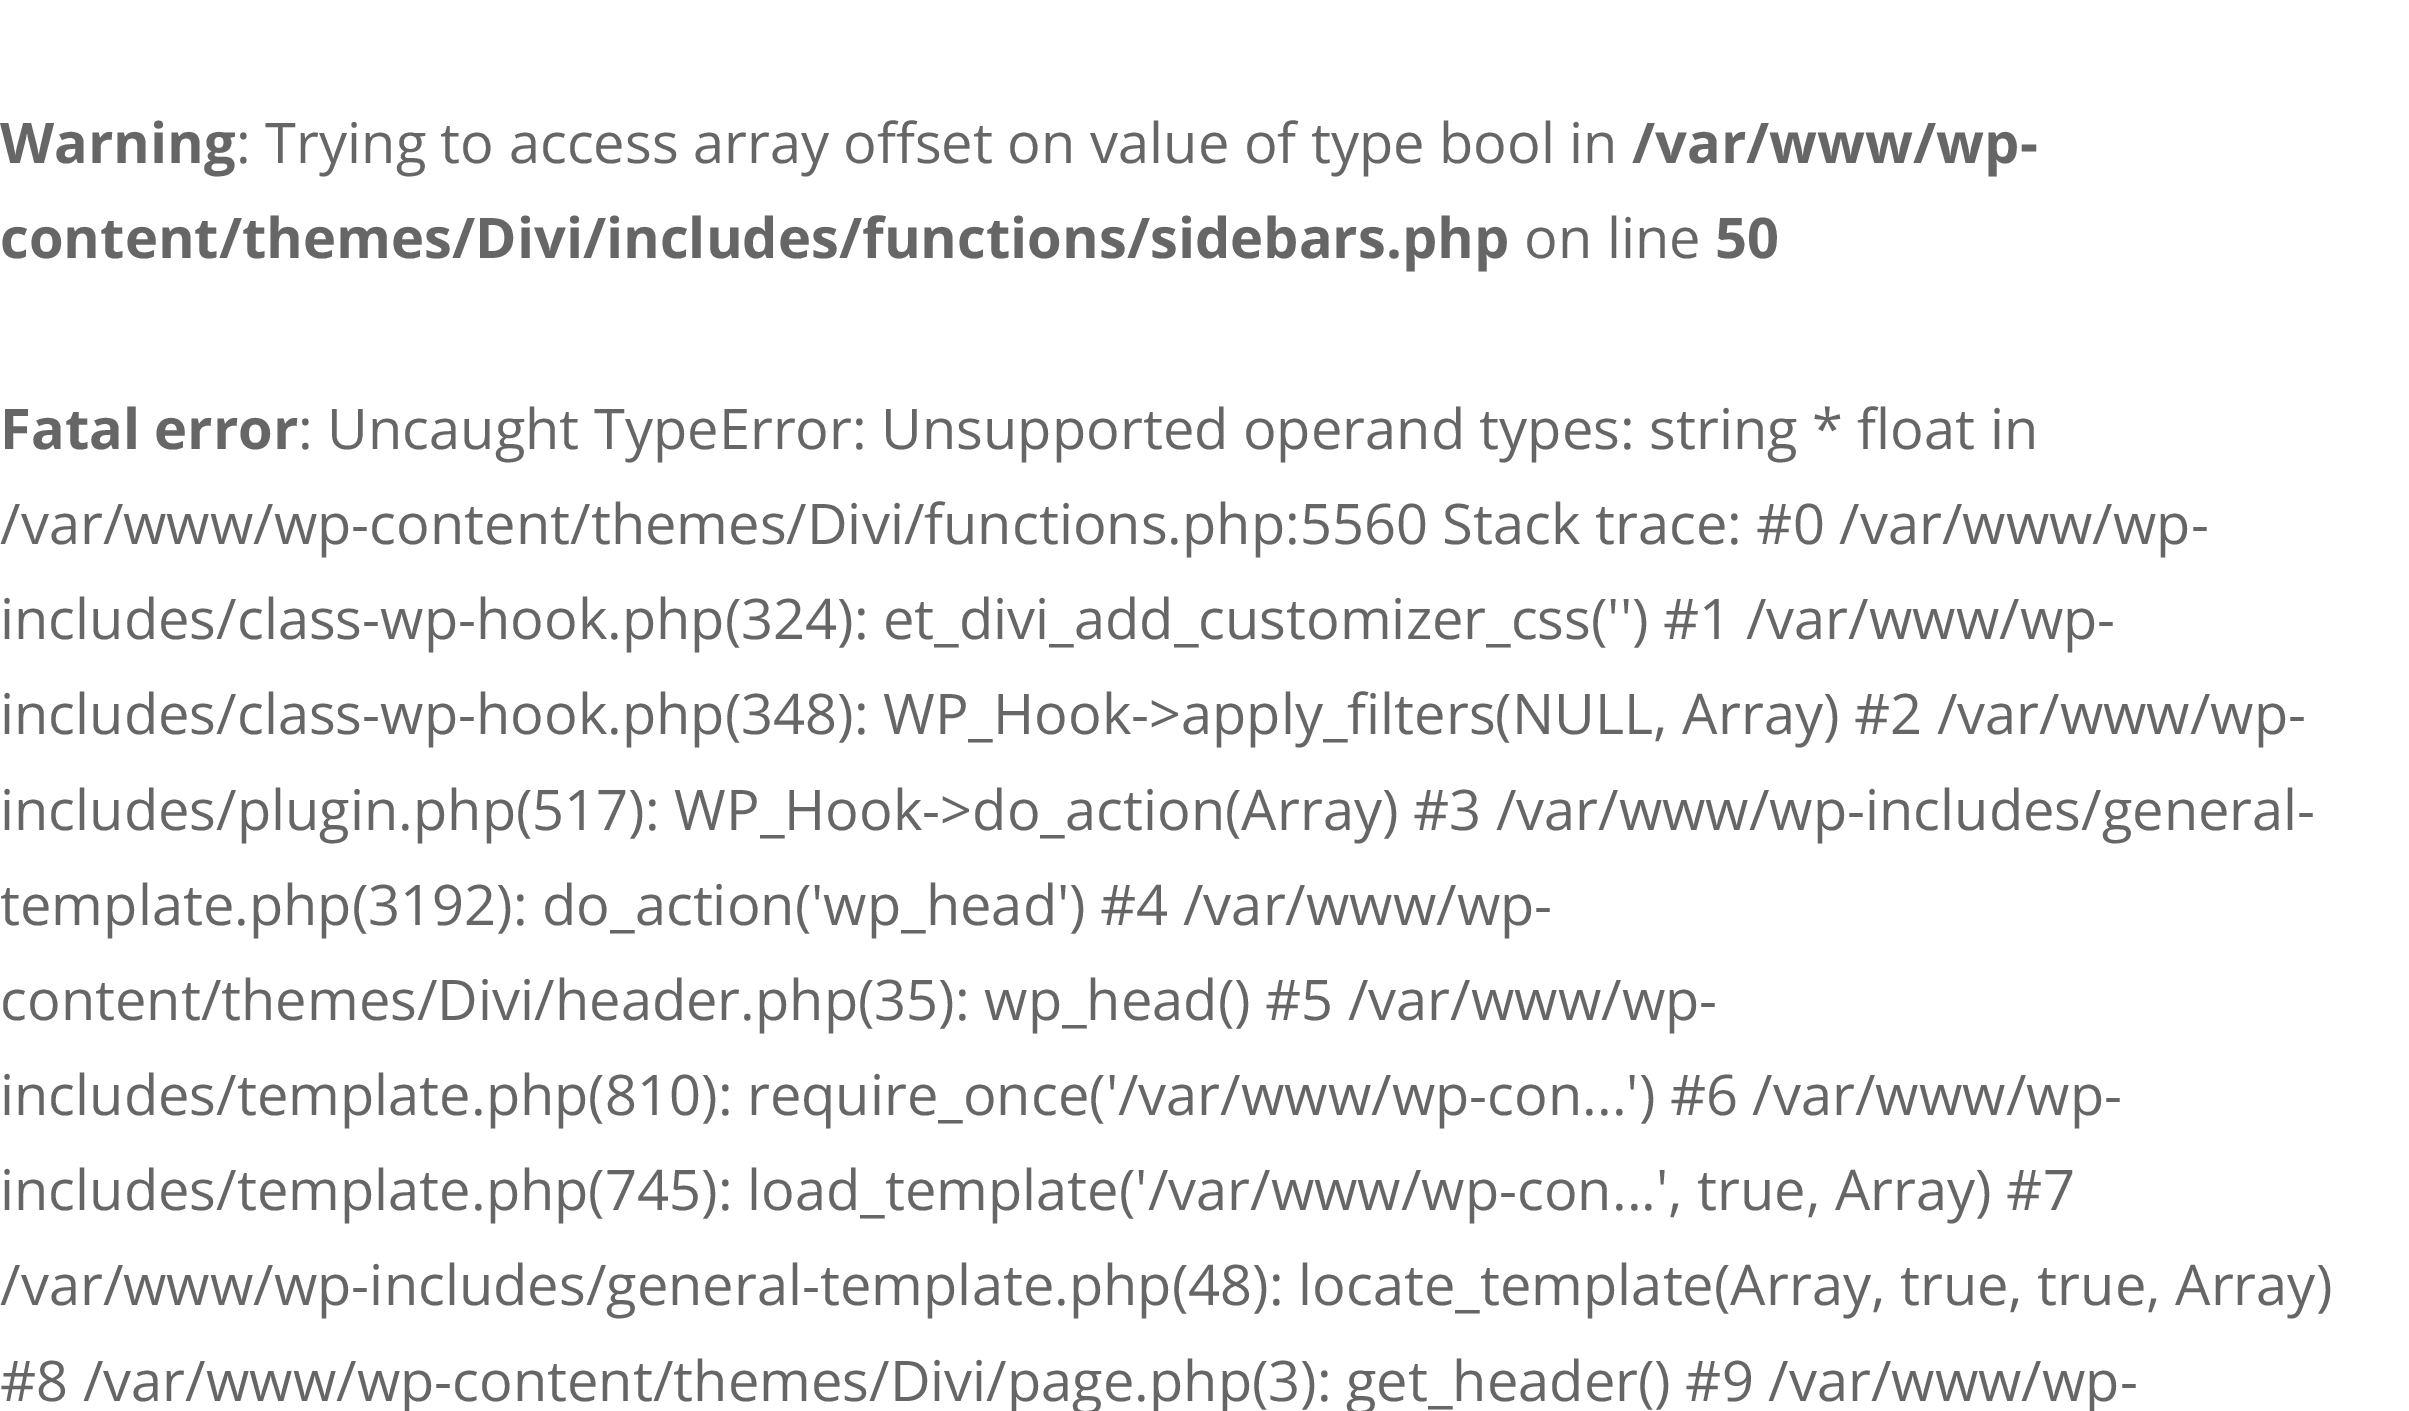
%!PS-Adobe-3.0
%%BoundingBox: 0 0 2409 1411
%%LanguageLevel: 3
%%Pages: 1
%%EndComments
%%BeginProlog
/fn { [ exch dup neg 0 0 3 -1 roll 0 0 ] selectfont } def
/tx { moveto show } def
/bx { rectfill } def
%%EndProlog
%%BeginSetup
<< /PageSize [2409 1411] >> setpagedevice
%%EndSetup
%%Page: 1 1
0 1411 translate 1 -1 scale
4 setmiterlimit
1 setgray
0 0 2409 1411 bx
/OpenSans-Bold 56 fn
0.4 setgray
(Warning) 0 163 tx
/OpenSans-Regular 56 fn
(: Trying to access array offset on value of type bool in) 236 163 tx
/OpenSans-Bold 56 fn
(/var/www/wp-) 1632 163 tx
(content/themes/Divi/includes/functions/sidebars.php) 0 258 tx
/OpenSans-Regular 56 fn
(on line) 1524 258 tx
/OpenSans-Bold 56 fn
(50) 1715 258 tx
(Fatal error) 0 449 tx
/OpenSans-Regular 56 fn
(: Uncaught TypeError: Unsupported operand types: string * float in) 298 449 tx
(/var/www/wp-content/themes/Divi/functions.php:5560 Stack trace: #0 /var/www/wp-) 0 544 tx
(includes/class-wp-hook.php\(324\): et_divi_add_customizer_css\(''\) #1 /var/www/wp-) 0 639 tx
(includes/class-wp-hook.php\(348\): WP_Hook->apply_filters\(NULL, Array\) #2 /var/www/wp-) 0 734 tx
(includes/plugin.php\(517\): WP_Hook->do_action\(Array\) #3 /var/www/wp-includes/general-) 0 830 tx
(template.php\(3192\): do_action\('wp_head'\) #4 /var/www/wp-) 0 925 tx
(content/themes/Divi/header.php\(35\): wp_head\(\) #5 /var/www/wp-) 0 1020 tx
(includes/template.php\(810\): require_once\('/var/www/wp-con...'\) #6 /var/www/wp-) 0 1115 tx
(includes/template.php\(745\): load_template\('/var/www/wp-con...', true, Array\) #7) 0 1210 tx
(/var/www/wp-includes/general-template.php\(48\): locate_template\(Array, true, true, Array\)) 0 1305 tx
(#8 /var/www/wp-content/themes/Divi/page.php\(3\): get_header\(\) #9 /var/www/wp-) 0 1401 tx
showpage
%%EOF
